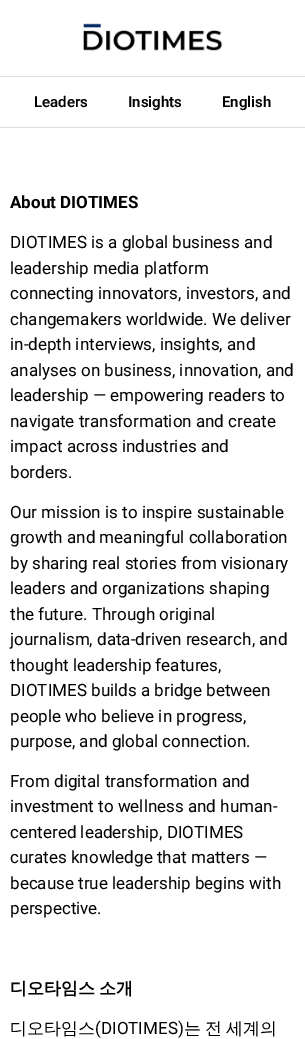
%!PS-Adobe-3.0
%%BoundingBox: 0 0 305 1039
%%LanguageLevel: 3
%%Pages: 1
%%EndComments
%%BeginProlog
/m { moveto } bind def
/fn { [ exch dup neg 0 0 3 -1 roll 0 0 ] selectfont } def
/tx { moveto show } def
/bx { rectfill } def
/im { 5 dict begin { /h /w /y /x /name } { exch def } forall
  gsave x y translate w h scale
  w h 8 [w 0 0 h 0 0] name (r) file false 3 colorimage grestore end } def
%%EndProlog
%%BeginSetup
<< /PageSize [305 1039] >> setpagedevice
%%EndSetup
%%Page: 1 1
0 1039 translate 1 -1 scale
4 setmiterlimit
1 setgray
0 0 305 1039 bx
(image0.raw) 83 23 140 28 im
0.867 setgray
0 76 305 1 bx
/Roboto-SemiBold 15 fn
0 setgray
(Leaders) 34 107 tx
(Insights) 128 107 tx
(English) 222 107 tx
0.867 setgray
0 127 305 1 bx
/Roboto-Bold 17 fn
0 setgray
(About DIOTIMES) 10 208 tx
/Roboto-Regular 17 fn
(DIOTIMES is a global business and) 10 248 tx
(leadership media platform) 10 274 tx
(connecting innovators, investors, and) 10 299 tx
(changemakers worldwide. We deliver) 10 325 tx
(in-depth interviews, insights, and) 10 350 tx
(analyses on business, innovation, and) 10 376 tx
(leadership — empowering readers to) 10 401 tx
(navigate transformation and create) 10 427 tx
(impact across industries and) 10 452 tx
(borders.) 10 478 tx
(Our mission is to inspire sustainable) 10 518 tx
(growth and meaningful collaboration) 10 543 tx
(by sharing real stories from visionary) 10 569 tx
(leaders and organizations shaping) 10 594 tx
(the future. Through original) 10 620 tx
(journalism, data-driven research, and) 10 645 tx
(thought leadership features,) 10 671 tx
(DIOTIMES builds a bridge between) 10 696 tx
(people who believe in progress,) 10 722 tx
(purpose, and global connection.) 10 747 tx
(From digital transformation and) 10 787 tx
(investment to wellness and human-) 10 812 tx
(centered leadership, DIOTIMES) 10 838 tx
(curates knowledge that matters —) 10 863 tx
(because true leadership begins with) 10 889 tx
(perspective.) 10 914 tx
/WenQuanYiZenHei-Bold 17 fn
10 994 m -1 0 32 (디오타임스 소개) widthshow
/WenQuanYiZenHei-Medium 17 fn
(디오타임스) 10 1034 tx
/Roboto-Regular 17 fn
(\(DIOTIMES\)) 95 1034 tx
/WenQuanYiZenHei-Medium 17 fn
184 1034 m -1 0 32 (는 전 세계의) widthshow
showpage
%%EOF
